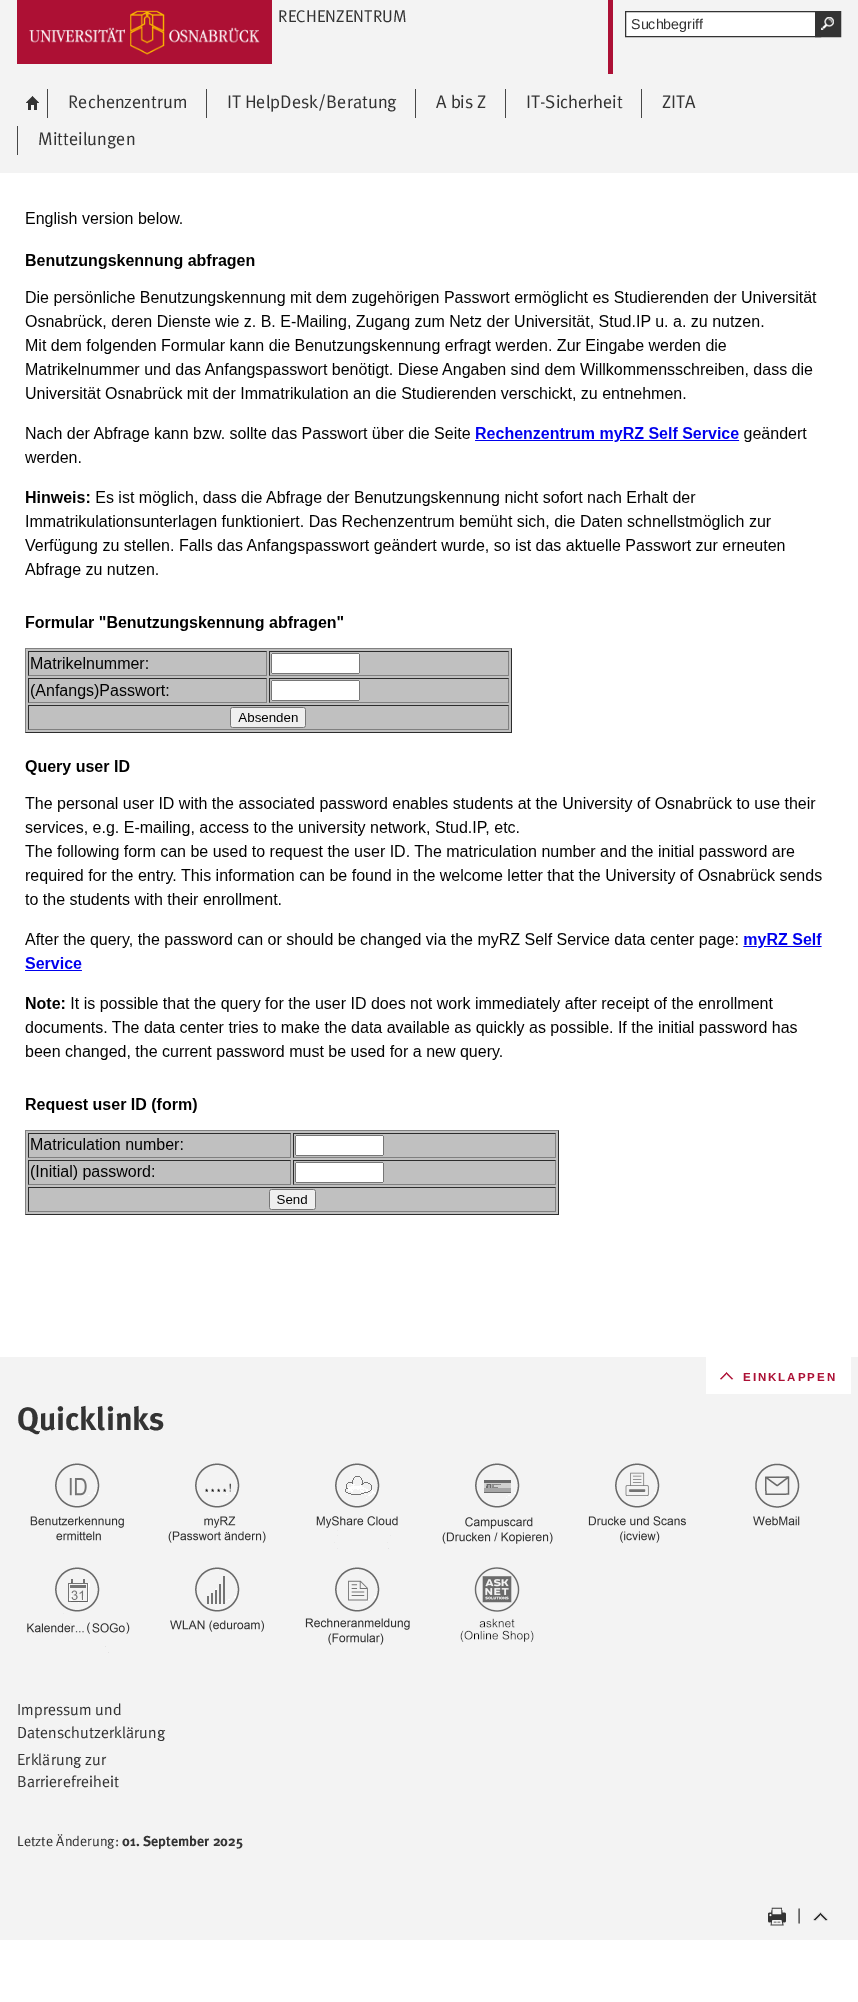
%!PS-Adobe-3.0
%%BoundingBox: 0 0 858 2002
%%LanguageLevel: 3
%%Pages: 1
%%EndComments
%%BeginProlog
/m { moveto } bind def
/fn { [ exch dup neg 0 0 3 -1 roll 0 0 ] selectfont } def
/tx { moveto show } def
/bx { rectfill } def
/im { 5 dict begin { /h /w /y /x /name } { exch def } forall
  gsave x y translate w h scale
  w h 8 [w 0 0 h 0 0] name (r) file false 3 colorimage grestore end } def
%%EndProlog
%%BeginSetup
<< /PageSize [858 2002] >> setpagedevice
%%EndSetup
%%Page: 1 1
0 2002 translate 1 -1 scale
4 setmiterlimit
1 setgray
0 0 858 2002 bx
0.953 setgray
0 0 858 173 bx
(image0.raw) 17 0 255 64 im
/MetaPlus-Regular 17 fn
0.2 setgray
(RECHENZENTRUM) 278 22 tx
0.675 0.063 0.208 setrgbcolor
608 0 5 74 bx
1 setgray
626 12 189 24 bx
0.2 setgray
625.5 11.5 195 25 rectstroke
/LiberationSans-Regular 14.25 fn
(Suchbegriff) 631 29 tx
815.5 11.5 25 25 rectstroke
816 12 24 24 bx
(image1.raw) 821 17 13 13 im
(image2.raw) 26 96 13 14 im
0.278 setgray
47 89 1 29 bx
/MetaPlus-Regular 18.25 fn
0.2 setgray
(Rechenzentrum) 68 108 tx
0.278 setgray
206 89 1 29 bx
0.2 setgray
(IT HelpDesk/Beratung) 227 108 tx
0.278 setgray
415 89 1 29 bx
0.2 setgray
(A bis Z) 436 108 tx
0.278 setgray
505 89 1 29 bx
0.2 setgray
(IT-Sicherheit) 526 108 tx
0.278 setgray
641 89 1 29 bx
0.2 setgray
(ZITA) 662 108 tx
0.278 setgray
17 126 1 29 bx
0.2 setgray
(Mitteilungen) 38 145 tx
(image3.raw) 25 212 797 1003 im
0.953 setgray
0 1357 858 583 bx
1 setgray
706 1357 145 37 bx
(image4.raw) 720 1372 14 8 im
/LiberationSans-Bold 11.5 fn
0.675 0.063 0.208 setrgbcolor
743 1381 m 2 0 (EINKLAPPEN) ashow
/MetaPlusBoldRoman-Bold 32.5 fn
0.2 setgray
(Quicklinks) 17 1430 tx
(image5.raw) 30 1463 94 78 im
(image6.raw) 168 1463 98 80 im
(image7.raw) 316 1463 82 86 im
(image8.raw) 442 1463 111 81 im
(image9.raw) 588 1463 98 80 im
(image10.raw) 753 1463 47 63 im
(image11.raw) 27 1567 103 86 im
(image12.raw) 170 1567 94 65 im
(image13.raw) 305 1567 105 78 im
(image14.raw) 460 1567 74 75 im
/MetaPlus-Regular 16 fn
(Impressum und) 17 1715 tx
(Datenschutzerklärung) 17 1738 tx
(Erklärung zur) 17 1765 tx
(Barrierefreiheit) 17 1787 tx
/MetaPlus-Regular 14.25 fn
(Letzte Änderung:) 17 1846 tx
/MetaPlusBoldRoman-Bold 14.25 fn
(01. September 2025) 122 1846 tx
(image15.raw) 768 1907 18 19 im
/LiberationSans-Regular 16 fn
(|) 797 1920 tx
(image16.raw) 813 1912 15 9 im
showpage
%%EOF
